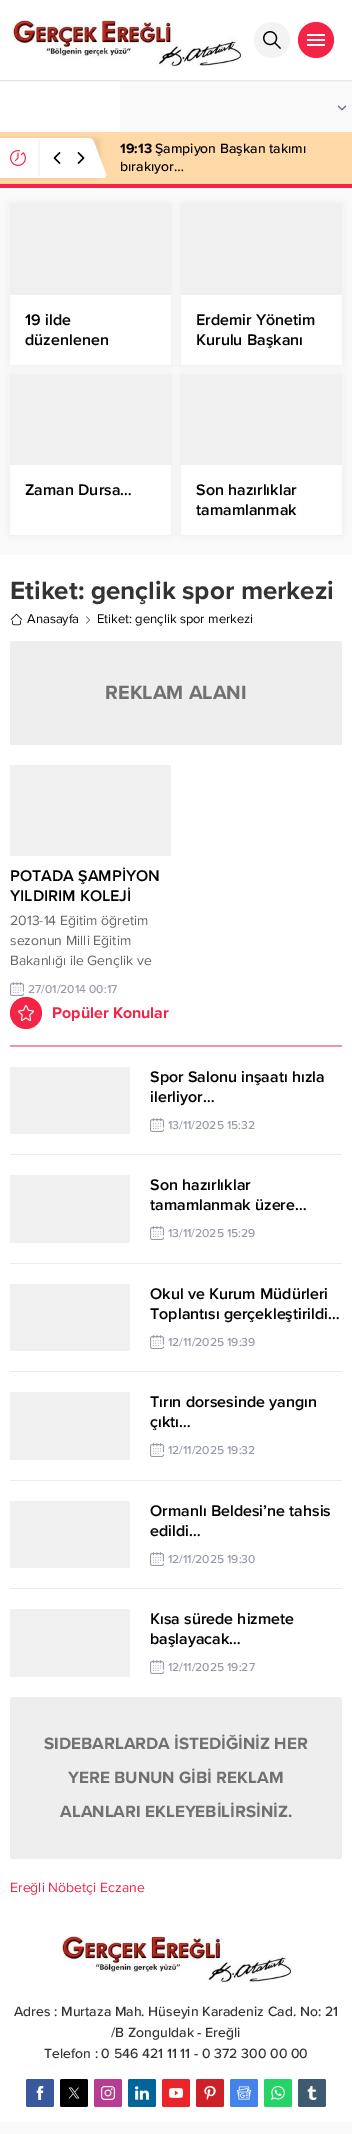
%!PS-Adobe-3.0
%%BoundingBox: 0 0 352 2134
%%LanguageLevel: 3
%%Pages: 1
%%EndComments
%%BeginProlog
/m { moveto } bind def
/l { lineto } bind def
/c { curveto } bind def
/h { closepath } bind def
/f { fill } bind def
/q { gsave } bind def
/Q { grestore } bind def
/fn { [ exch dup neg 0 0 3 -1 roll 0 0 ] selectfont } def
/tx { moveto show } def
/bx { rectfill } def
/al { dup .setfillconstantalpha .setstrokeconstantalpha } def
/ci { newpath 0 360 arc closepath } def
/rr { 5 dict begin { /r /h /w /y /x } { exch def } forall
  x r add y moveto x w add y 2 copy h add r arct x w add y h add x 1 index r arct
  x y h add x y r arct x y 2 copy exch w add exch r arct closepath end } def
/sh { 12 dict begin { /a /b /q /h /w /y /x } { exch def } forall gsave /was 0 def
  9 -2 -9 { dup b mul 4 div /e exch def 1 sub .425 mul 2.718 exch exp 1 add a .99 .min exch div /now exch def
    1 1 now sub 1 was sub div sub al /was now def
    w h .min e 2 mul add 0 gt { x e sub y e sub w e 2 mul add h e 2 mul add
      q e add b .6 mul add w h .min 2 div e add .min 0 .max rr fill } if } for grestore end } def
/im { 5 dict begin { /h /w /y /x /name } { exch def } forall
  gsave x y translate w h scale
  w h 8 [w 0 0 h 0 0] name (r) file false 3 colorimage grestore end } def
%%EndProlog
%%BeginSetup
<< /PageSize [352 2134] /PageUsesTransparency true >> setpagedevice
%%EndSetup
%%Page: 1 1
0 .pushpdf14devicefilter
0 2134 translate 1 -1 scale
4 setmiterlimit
1 setgray
0 0 352 2134 bx
0.953 setgray
0 80 120 1 bx
0.976 setgray
120 80 232 52 bx
q
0 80 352 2 rectclip
0 setgray
0 0 352 80 0 1.5 0.15 sh
Q
(image0.raw) 10 20 233 47 im
0.953 setgray
272 40 18 ci f
(image1.raw) 263 31 18 18 im
0.957 0.141 0.278 setrgbcolor
316 40 18 ci f
(image2.raw) 307 34 18 12 im
(image3.raw) 337 105 10 6 im
1 0.851 0.659 setrgbcolor
0 132 352 52 bx
0 setgray
-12 138 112 40 4 2.5 0.07 sh
1 setgray
-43 138 m 89 138 l 91 138 93 140 94 142 c 106 174 l 107 176 105 178 103 178 c -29 178 l -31 178 -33 176 -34 174 c -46 142 l -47 140 -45 138 -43 138 c h f
(image4.raw) 10 150 16 16 im
0.957 0.141 0.278 setrgbcolor
0 184 352 4 bx
q
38 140 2 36 rectclip
0 setgray
40 140 50 36 0 2.5 0.1 sh
Q
(image5.raw) 53 152 8 12 im
(image6.raw) 77 152 8 12 im
/ProximaNova-Bold 14 fn
0 setgray
(19:13) 120 153 tx
/ProximaNova-Medium 14 fn
(Şampiyon Başkan takımı) 155 153 tx
(bırakıyor…) 120 171 tx
0.976 setgray
0 188 352 367 bx
0 setgray
10 204 161 161 0 4 0.05 sh
1 setgray
10 295 161 70 bx
0 setgray
181 204 161 161 0 4 0.05 sh
0.941 setgray
10 204 161 91 bx
/ProximaNova-SemiBold 16 fn
0 setgray
(19 ilde) 25 325 tx
(düzenlenen) 25 345 tx
0.941 setgray
181 204 161 91 bx
1 setgray
181 295 161 70 bx
0 setgray
(Erdemir Yönetim) 196 325 tx
(Kurulu Başkanı) 196 345 tx
10 375 161 160 0 4 0.05 sh
1 setgray
10 465 161 70 bx
0 setgray
181 375 161 160 0 4 0.05 sh
0.941 setgray
10 375 161 90 bx
0 setgray
(Zaman Dursa…) 25 495 tx
0.941 setgray
181 375 161 90 bx
1 setgray
181 465 161 70 bx
0 setgray
(Son hazırlıklar) 196 495 tx
(tamamlanmak) 196 515 tx
/ProximaNova-Bold 26 fn
0.2 setgray
(Etiket: gençlik spor merkezi) 10 599 tx
(image7.raw) 10 613 13 13 im
/ProximaNova-Regular 13 fn
0 setgray
(Anasayfa) 27 623 tx
(image8.raw) 86 616 4 8 im
(Etiket: gençlik spor merkezi) 97 623 tx
0.933 setgray
10 641 332 104 bx
/ProximaNova-Bold 20 fn
0.443 setgray
(REKLAM ALANI) 105 699 tx
0.941 setgray
10 765 161 91 bx
/ProximaNova-SemiBold 16 fn
0 setgray
(POTADA ŞAMPİYON) 10 881 tx
(YILDIRIM KOLEJİ) 10 901 tx
/ProximaNova-Regular 14 fn
0.4 setgray
(2013-14 Eğitim öğretim) 10 925 tx
(sezonun Milli Eğitim) 10 945 tx
(Bakanlığı ile Gençlik ve) 10 965 tx
(image9.raw) 10 982 14 14 im
/ProximaNova-Medium 12 fn
0.588 0.604 0.663 setrgbcolor
(27/01/2014 00:17) 28 993 tx
0.957 0.141 0.278 setrgbcolor
26 1013 16 ci f
(image10.raw) 18 1005 16 16 im
/ProximaNova-Bold 16 fn
(Popüler Konular) 52 1018 tx
0.98 0.573 0.639 setrgbcolor
10 1045 332 2 bx
0.929 setgray
10 1154 332 1 bx
0.941 setgray
10 1067 120 67 bx
/ProximaNova-SemiBold 16 fn
0 setgray
(Spor Salonu inşaatı hızla) 150 1082 tx
(ilerliyor…) 150 1102 tx
(image9.raw) 150 1118 14 14 im
/ProximaNova-Medium 12 fn
0.588 0.604 0.663 setrgbcolor
(13/11/2025 15:32) 168 1129 tx
0.929 setgray
10 1263 332 1 bx
0.941 setgray
10 1175 120 68 bx
/ProximaNova-SemiBold 16 fn
0 setgray
(Son hazırlıklar) 150 1190 tx
(tamamlanmak üzere…) 150 1210 tx
(image9.raw) 150 1226 14 14 im
/ProximaNova-Medium 12 fn
0.588 0.604 0.663 setrgbcolor
(13/11/2025 15:29) 168 1237 tx
0.929 setgray
10 1371 332 1 bx
0.941 setgray
10 1284 120 67 bx
/ProximaNova-SemiBold 16 fn
0 setgray
(Okul ve Kurum Müdürleri) 150 1299 tx
(Toplantısı gerçekleştirildi…) 150 1319 tx
(image9.raw) 150 1335 14 14 im
/ProximaNova-Medium 12 fn
0.588 0.604 0.663 setrgbcolor
(12/11/2025 19:39) 168 1346 tx
0.929 setgray
10 1480 332 1 bx
0.941 setgray
10 1392 120 68 bx
/ProximaNova-SemiBold 16 fn
0 setgray
(Tırın dorsesinde yangın) 150 1407 tx
(çıktı…) 150 1427 tx
(image9.raw) 150 1443 14 14 im
/ProximaNova-Medium 12 fn
0.588 0.604 0.663 setrgbcolor
(12/11/2025 19:32) 168 1454 tx
0.929 setgray
10 1588 332 1 bx
0.941 setgray
10 1501 120 67 bx
/ProximaNova-SemiBold 16 fn
0 setgray
(Ormanlı Beldesi’ne tahsis) 150 1516 tx
(edildi…) 150 1536 tx
(image9.raw) 150 1552 14 14 im
/ProximaNova-Medium 12 fn
0.588 0.604 0.663 setrgbcolor
(12/11/2025 19:30) 168 1563 tx
0.941 setgray
10 1609 120 68 bx
/ProximaNova-SemiBold 16 fn
0 setgray
(Kısa sürede hizmete) 150 1624 tx
(başlayacak…) 150 1644 tx
(image9.raw) 150 1660 14 14 im
/ProximaNova-Medium 12 fn
0.588 0.604 0.663 setrgbcolor
(12/11/2025 19:27) 168 1671 tx
0.98 setgray
10 1697 332 162 bx
0.933 setgray
10 1697 332 162 3 rr f
/ProximaNova-Bold 17 fn
0.443 setgray
(SIDEBARLARDA İSTEDİĞİNİZ HER) 44 1749 tx
(YERE BUNUN GİBİ REKLAM) 68 1783 tx
(ALANLARI EKLEYEBİLİRSİNİZ.) 60 1817 tx
/ProximaNova-Regular 14 fn
0.957 0.141 0.278 setrgbcolor
(Ereğli Nöbetçi Eczane) 10 1892 tx
(image11.raw) 59 1936 234 47 im
/ProximaNova-Medium 14 fn
0.2 setgray
(Adres : Murtaza Mah. Hüseyin Karadeniz Cad. No: 21) 14 2016 tx
(/B Zonguldak - Ereğli) 111 2037 tx
(Telefon : 0 546 421 11 11 - 0 372 300 00 00) 44 2058 tx
0.22 0.349 0.608 setrgbcolor
26 2079 28 28 2 rr f
(image12.raw) 36 2086 8 14 im
0 setgray
60 2079 28 28 2 rr f
(image13.raw) 68 2087 12 12 im
0.722 0.235 0.573 setrgbcolor
94 2079 28 28 2 rr f
(image14.raw) 101 2086 14 14 im
0 0.396 0.608 setrgbcolor
128 2079 28 28 2 rr f
(image15.raw) 135 2086 14 14 im
0.922 0.141 0.161 setrgbcolor
162 2079 28 28 2 rr f
(image16.raw) 169 2088 14 10 im
0.804 0.129 0.153 setrgbcolor
196 2079 28 28 2 rr f
(image17.raw) 204 2086 12 14 im
0.271 0.514 0.925 setrgbcolor
230 2079 28 28 2 rr f
(image18.raw) 237 2086 14 14 im
0.145 0.827 0.4 setrgbcolor
264 2079 28 28 2 rr f
(image19.raw) 271 2086 14 14 im
0.239 0.353 0.439 setrgbcolor
298 2079 28 28 2 rr f
(image20.raw) 307 2086 10 14 im
0.98 setgray
0 2122 352 12 bx
.poppdf14devicefilter showpage
%%EOF
